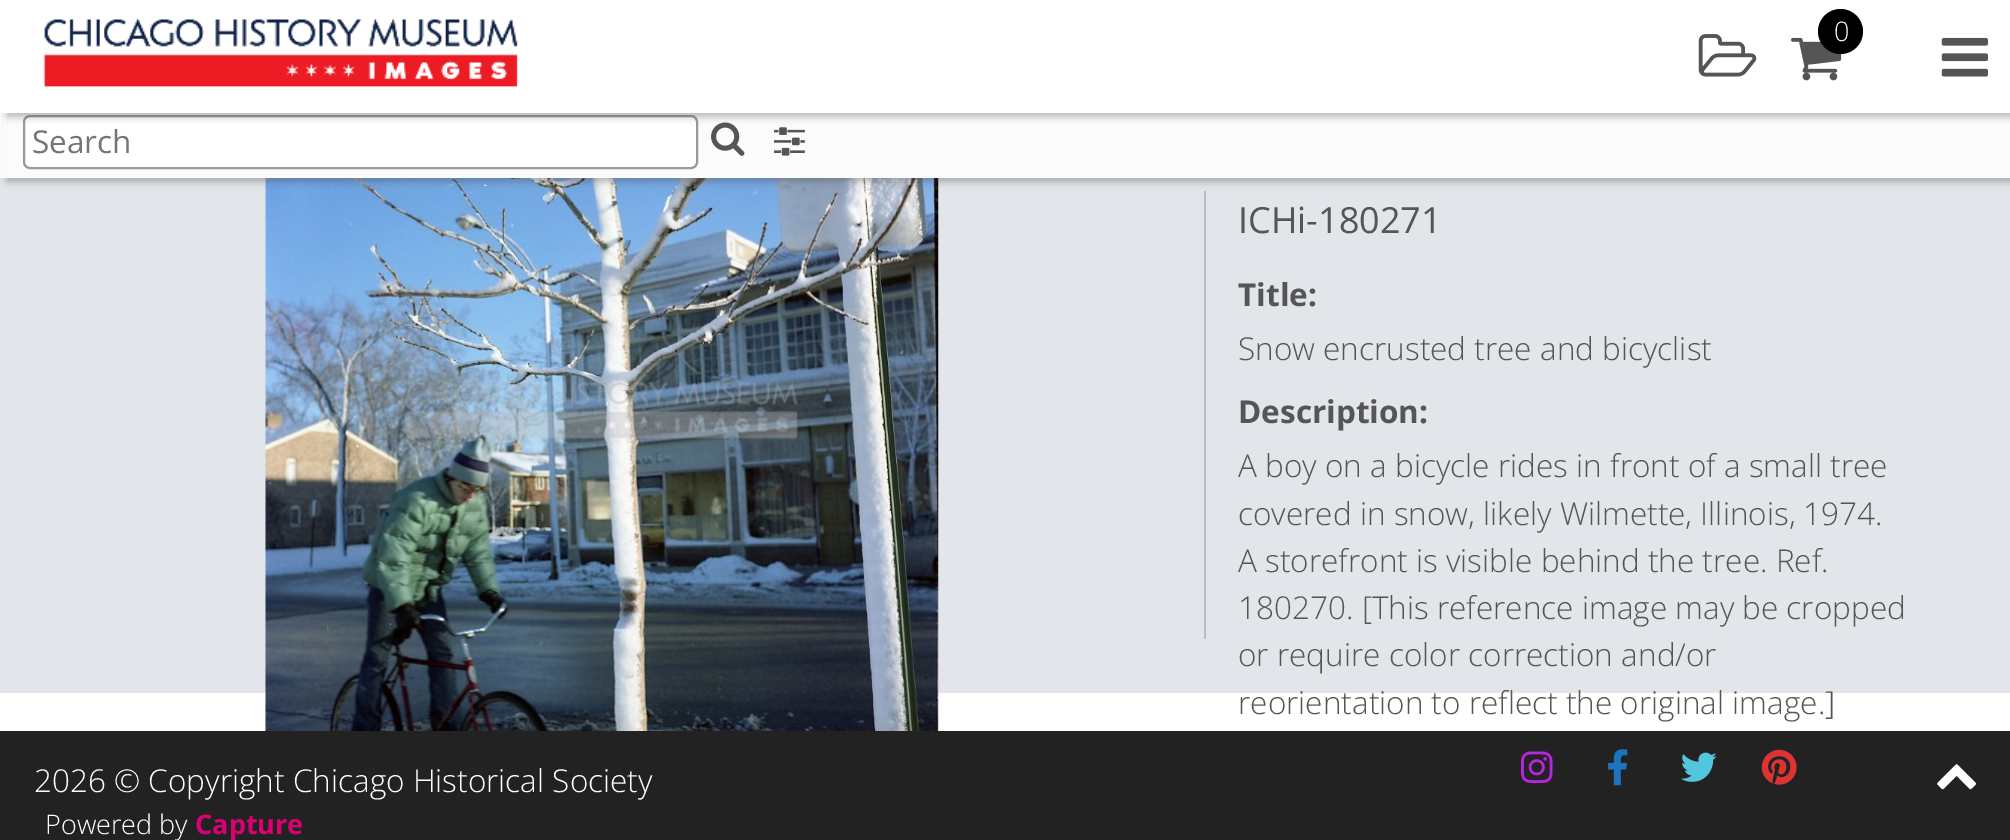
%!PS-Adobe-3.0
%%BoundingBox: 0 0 2010 840
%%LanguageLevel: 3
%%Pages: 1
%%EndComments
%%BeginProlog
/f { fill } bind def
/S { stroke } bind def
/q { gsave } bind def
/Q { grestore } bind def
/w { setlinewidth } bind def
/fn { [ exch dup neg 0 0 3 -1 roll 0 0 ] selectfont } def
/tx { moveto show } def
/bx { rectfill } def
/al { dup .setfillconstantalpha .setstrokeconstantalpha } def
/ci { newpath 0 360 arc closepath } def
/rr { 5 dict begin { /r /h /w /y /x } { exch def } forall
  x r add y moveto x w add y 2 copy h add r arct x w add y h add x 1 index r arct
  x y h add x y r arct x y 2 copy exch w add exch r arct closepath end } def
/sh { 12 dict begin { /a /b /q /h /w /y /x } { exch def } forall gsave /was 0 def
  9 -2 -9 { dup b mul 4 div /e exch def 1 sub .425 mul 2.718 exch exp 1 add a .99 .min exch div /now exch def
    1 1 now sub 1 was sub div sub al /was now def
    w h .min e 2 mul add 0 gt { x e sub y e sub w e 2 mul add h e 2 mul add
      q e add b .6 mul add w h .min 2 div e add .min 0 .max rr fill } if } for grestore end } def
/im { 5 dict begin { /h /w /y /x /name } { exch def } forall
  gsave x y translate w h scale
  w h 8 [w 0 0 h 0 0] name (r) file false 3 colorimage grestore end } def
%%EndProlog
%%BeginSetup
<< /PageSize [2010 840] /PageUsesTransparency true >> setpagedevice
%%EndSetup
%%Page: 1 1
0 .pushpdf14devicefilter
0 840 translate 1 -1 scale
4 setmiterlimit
1 setgray
0 0 2010 840 bx
0.886 0.898 0.914 setrgbcolor
0 178 2010 515 bx
0.718 0.741 0.784 setrgbcolor
1204 191 2 448 bx
(image6.raw) 265 178 674 553 im
0.29 0.271 0.271 setrgbcolor
7 101 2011 81 0 3.5 0.35 sh
0.984 setgray
3 113 2007 65 bx
1 setgray
24 116 673 52 6 rr q f Q
0.6 setgray
2 w
S
(image4.raw) 711 122 34 34 im
(image5.raw) 774 127 31 29 im
0.29 0.271 0.271 setrgbcolor
7 5 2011 112 0 3.5 0.35 sh
1 setgray
0 0 2010 113 bx
(image0.raw) 43 19 475 68 im
(image1.raw) 1791 37 51 44 im
0 setgray
1840.5 31.5 22.5 ci f
/OpenSans-Light 27 fn
1 setgray
(0) 1834 41 tx
(image2.raw) 1698 34 59 43 im
(image3.raw) 1941 37 48 40 im
/OpenSans-Regular 31.5 fn
0.459 setgray
(Search) 32 153 tx
/OpenSans-Regular 36 fn
0.333 setgray
(ICHi-180271) 1238 233 tx
/OpenSans-Bold 31.5 fn
(Title:) 1238 306 tx
/OpenSans-Light 31.5 fn
(Snow encrusted tree and bicyclist) 1238 360 tx
/OpenSans-Bold 31.5 fn
(Description:) 1238 423 tx
/OpenSans-Light 31.5 fn
(A boy on a bicycle rides in front of a small tree) 1238 477 tx
(covered in snow, likely Wilmette, Illinois, 1974.) 1238 525 tx
(A storefront is visible behind the tree. Ref.) 1238 572 tx
(180270. [This reference image may be cropped) 1238 619 tx
(or require color correction and/or) 1238 666 tx
(reorientation to reflect the original image.]) 1238 714 tx
0.133 setgray
0 731 2010 109 bx
1 setgray
(2026 © Copyright Chicago Historical Society) 34 792 tx
/OpenSans-Light 27 fn
(Powered by) 45 834 tx
/OpenSans-Bold 27 fn
0.859 0 0.455 setrgbcolor
(Capture) 195 834 tx
(image7.raw) 1521 751 32 32 im
(image8.raw) 1608 749 20 37 im
(image9.raw) 1681 752 36 30 im
(image10.raw) 1761 749 36 36 im
(image11.raw) 1937 764 39 26 im
.poppdf14devicefilter showpage
%%EOF
